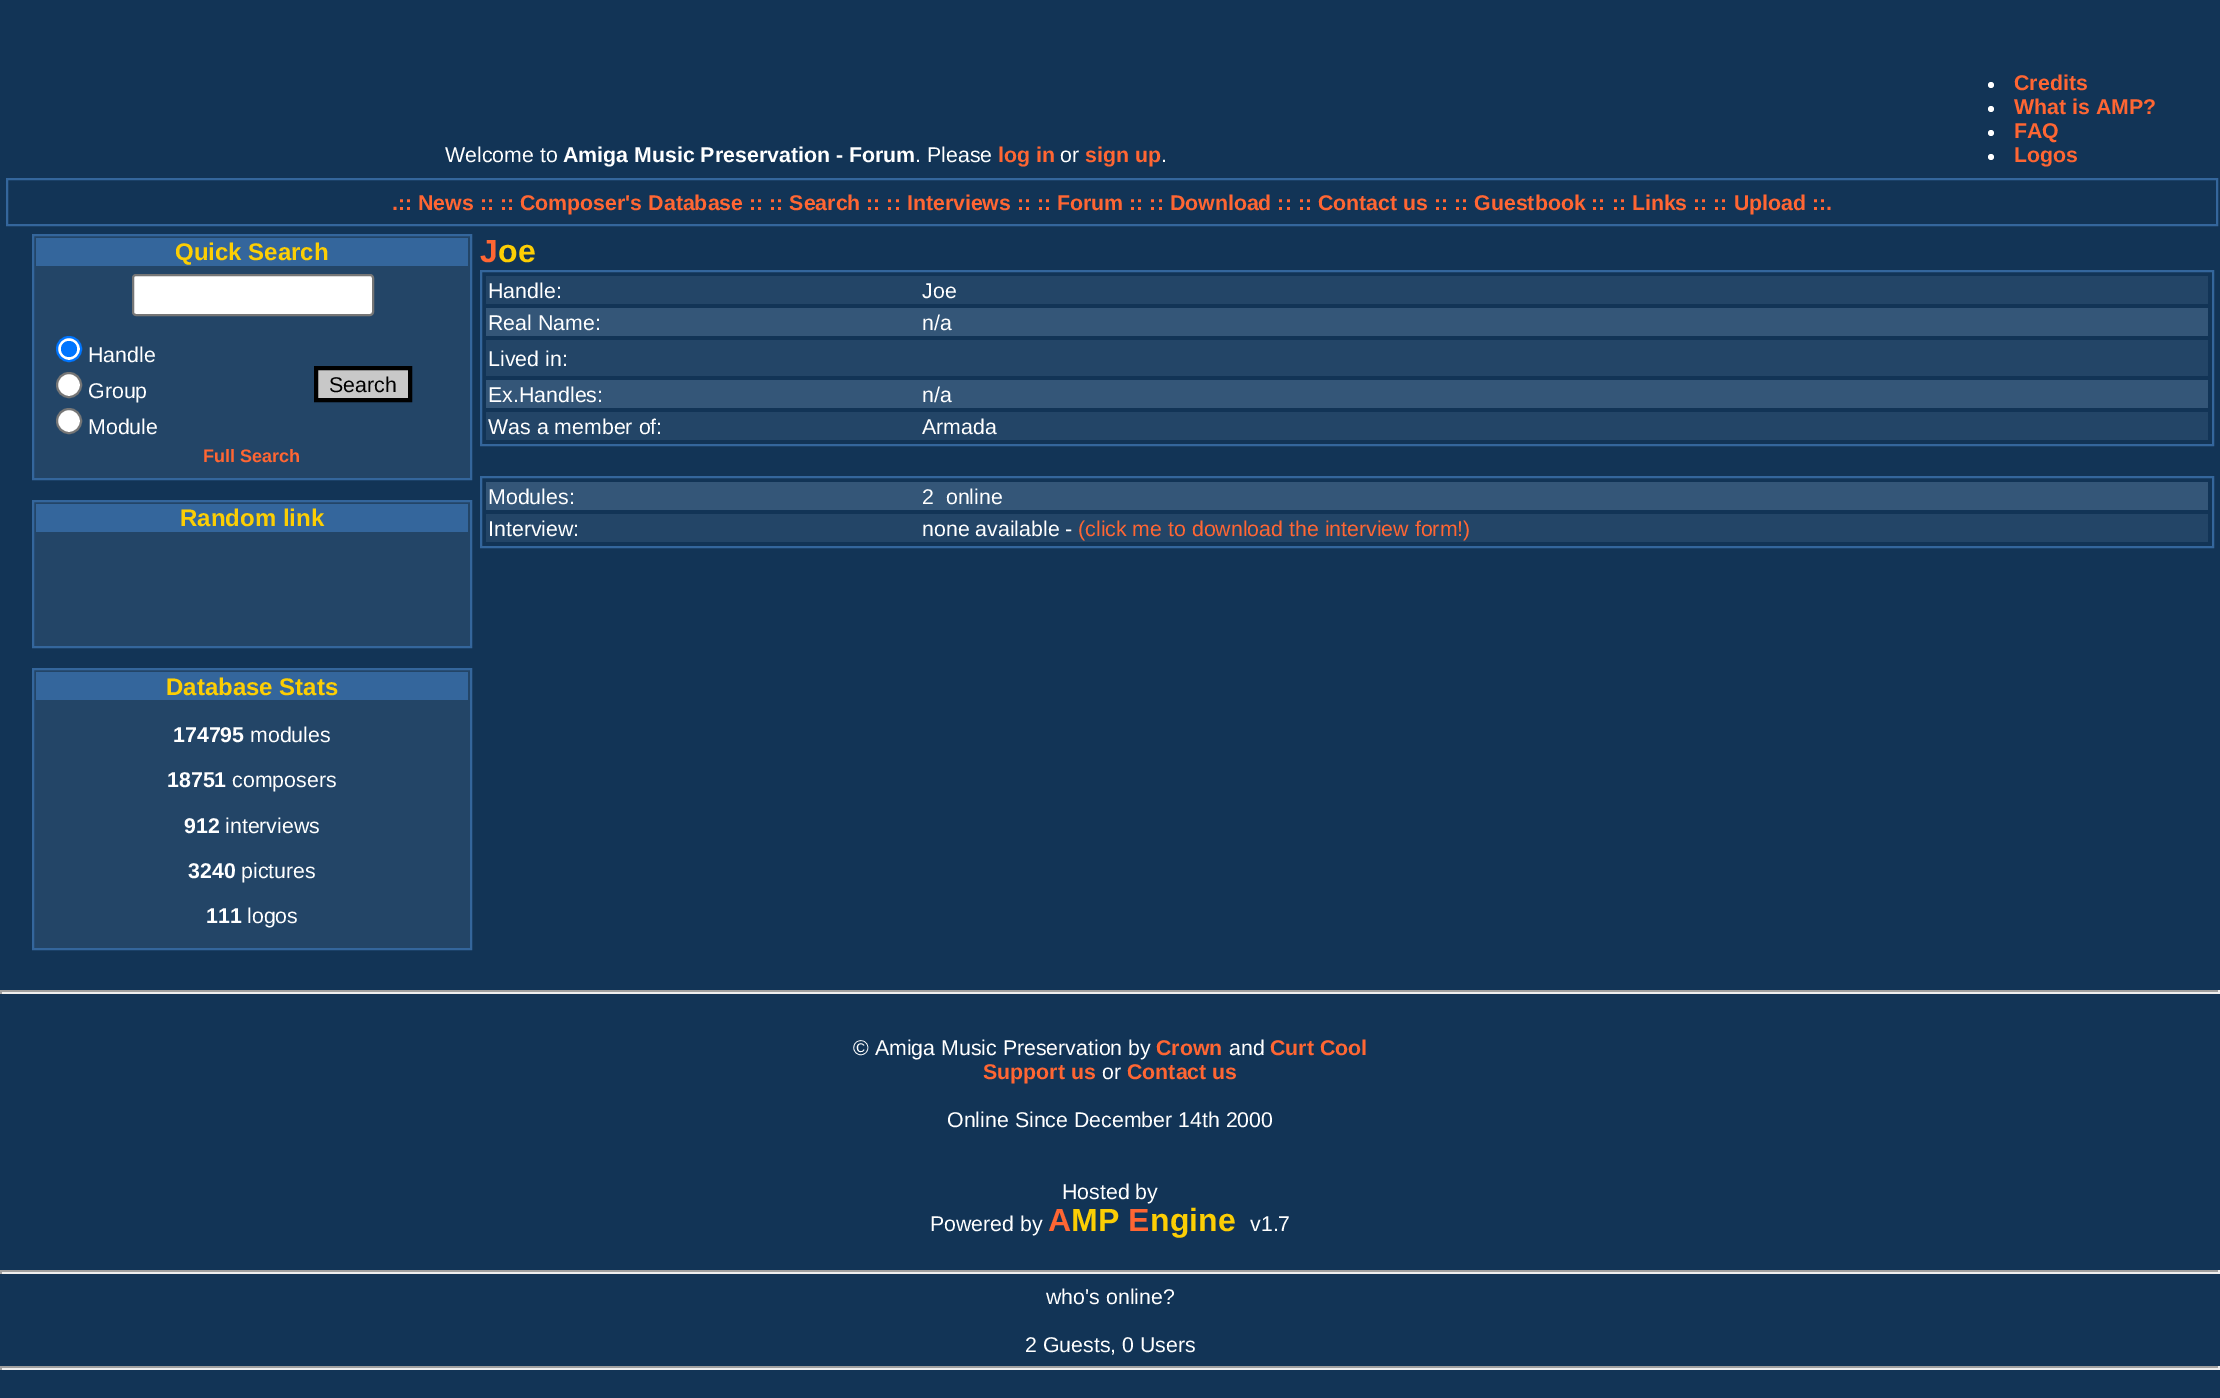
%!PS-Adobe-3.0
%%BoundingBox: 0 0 2220 1398
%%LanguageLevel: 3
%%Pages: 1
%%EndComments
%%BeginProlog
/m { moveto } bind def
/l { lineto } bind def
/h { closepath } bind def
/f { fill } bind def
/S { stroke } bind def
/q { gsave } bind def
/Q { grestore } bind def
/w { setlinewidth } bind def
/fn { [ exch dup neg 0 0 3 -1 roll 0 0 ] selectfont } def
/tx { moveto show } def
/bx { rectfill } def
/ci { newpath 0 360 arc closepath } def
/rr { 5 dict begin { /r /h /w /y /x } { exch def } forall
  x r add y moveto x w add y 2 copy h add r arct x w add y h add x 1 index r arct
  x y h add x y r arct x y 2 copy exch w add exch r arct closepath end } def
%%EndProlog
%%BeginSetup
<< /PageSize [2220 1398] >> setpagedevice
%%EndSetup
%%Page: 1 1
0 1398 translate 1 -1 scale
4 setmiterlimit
0.071 0.204 0.337 setrgbcolor
0 0 2220 1398 bx
/LiberationSans-Regular 21.33 fn
1 setgray
(Welcome to) 445 162 tx
/LiberationSans-Bold 21.33 fn
(Amiga Music Preservation - Forum) 563 162 tx
/LiberationSans-Regular 21.33 fn
(. Please) 915 162 tx
/LiberationSans-Bold 21.33 fn
1 0.4 0.2 setrgbcolor
(log in) 998 162 tx
/LiberationSans-Regular 21.33 fn
1 setgray
(or) 1060 162 tx
/LiberationSans-Bold 21.33 fn
1 0.4 0.2 setrgbcolor
(sign up) 1085 162 tx
/LiberationSans-Regular 21.33 fn
1 setgray
(.) 1161 162 tx
1991 85 3 ci f
/LiberationSans-Bold 21.33 fn
1 0.4 0.2 setrgbcolor
(Credits) 2014 90 tx
1 setgray
1991 109 3 ci f
1 0.4 0.2 setrgbcolor
(What is AMP?) 2014 114 tx
1 setgray
1991 133 3 ci f
1 0.4 0.2 setrgbcolor
(FAQ) 2014 138 tx
1 setgray
1991 157 3 ci f
1 0.4 0.2 setrgbcolor
(Logos) 2014 162 tx
0.204 0.4 0.612 setrgbcolor
2 w
7 179 2210 46 rectstroke
1 0.4 0.2 setrgbcolor
(.:: News :: :: Composer's Database :: :: Search :: :: Interviews :: :: Forum :: :: Download :: :: Contact us :: :: Guestbook :: :: Links :: :: Upload ::.) 392 210 tx
0.137 0.271 0.404 setrgbcolor
33 235 m 471 235 l 471 479 l 33 479 l h q f Q
0.204 0.4 0.612 setrgbcolor
S
36 238 432 28 bx
/LiberationSans-Bold 24 fn
0.988 0.808 0.016 setrgbcolor
(Quick Search) 175 260 tx
1 setgray
133 275 240 40 3 rr q f Q
0.463 setgray
S
1 setgray
69 349 12 ci q f Q
0 0.459 1 setrgbcolor
S
69 349 8 ci f
/LiberationSans-Regular 21.33 fn
1 setgray
(Handle) 88 362 tx
69 385 12 ci q f Q
0.463 setgray
S
1 setgray
(Group) 88 398 tx
69 421 12 ci q f Q
0.463 setgray
S
1 setgray
(Module) 88 434 tx
0.784 setgray
316 368 m 410 368 l 410 400 l 316 400 l h q f Q
0 setgray
4 w
S
(Search) 329 392 tx
/LiberationSans-Bold 18 fn
1 0.4 0.2 setrgbcolor
(Full Search) 203 462 tx
0.137 0.271 0.404 setrgbcolor
33 501 m 471 501 l 471 647 l 33 647 l h q f Q
0.204 0.4 0.612 setrgbcolor
2 w
S
36 504 432 28 bx
/LiberationSans-Bold 24 fn
0.988 0.808 0.016 setrgbcolor
(Random link) 180 526 tx
0.137 0.271 0.404 setrgbcolor
33 669 m 471 669 l 471 949 l 33 949 l h q f Q
0.204 0.4 0.612 setrgbcolor
S
36 672 432 28 bx
0.988 0.808 0.016 setrgbcolor
(Database Stats) 166 695 tx
/LiberationSans-Bold 21.33 fn
1 setgray
(174795) 173 742 tx
/LiberationSans-Regular 21.33 fn
(modules) 250 742 tx
/LiberationSans-Bold 21.33 fn
(18751) 167 787 tx
/LiberationSans-Regular 21.33 fn
(composers) 232 787 tx
/LiberationSans-Bold 21.33 fn
(912) 184 833 tx
/LiberationSans-Regular 21.33 fn
(interviews) 225 833 tx
/LiberationSans-Bold 21.33 fn
(3240) 188 878 tx
/LiberationSans-Regular 21.33 fn
(pictures) 241 878 tx
/LiberationSans-Bold 21.33 fn
(111) 206 923 tx
/LiberationSans-Regular 21.33 fn
(logos) 247 923 tx
/LiberationSans-Bold 32 fn
1 0.4 0.2 setrgbcolor
(J) 480 262 tx
0.988 0.808 0.016 setrgbcolor
(oe) 498 262 tx
0.204 0.4 0.612 setrgbcolor
481 271 1732 174 rectstroke
0.137 0.271 0.404 setrgbcolor
486 276 1722 28 bx
/LiberationSans-Regular 21.33 fn
1 setgray
(Handle:) 488 298 tx
(Joe) 922 298 tx
0.204 0.337 0.471 setrgbcolor
486 308 1722 28 bx
1 setgray
(Real Name:) 488 330 tx
(n/a) 922 330 tx
0.137 0.271 0.404 setrgbcolor
486 340 1722 36 bx
1 setgray
(Lived in:) 488 366 tx
0.204 0.337 0.471 setrgbcolor
486 380 1722 28 bx
1 setgray
(Ex.Handles:) 488 402 tx
(n/a) 922 402 tx
0.137 0.271 0.404 setrgbcolor
486 412 1722 28 bx
1 setgray
(Was a member of:) 488 434 tx
(Armada) 922 434 tx
0.204 0.4 0.612 setrgbcolor
481 477 1732 70 rectstroke
0.204 0.337 0.471 setrgbcolor
486 482 1722 28 bx
1 setgray
(Modules:) 488 504 tx
(2  online) 922 504 tx
0.137 0.271 0.404 setrgbcolor
486 514 1722 28 bx
1 setgray
(Interview:) 488 536 tx
(none available -) 922 536 tx
1 0.4 0.2 setrgbcolor
(\(click me to download the interview form!\)) 1078 536 tx
0.624 setgray
0 990 2220 2 bx
0.933 setgray
2218 990 2 4 bx
0 992 2220 2 bx
0.624 setgray
0 990 2 4 bx
1 setgray
(© Amiga Music Preservation by) 853 1055 tx
/LiberationSans-Bold 21.33 fn
1 0.4 0.2 setrgbcolor
(Crown) 1156 1055 tx
/LiberationSans-Regular 21.33 fn
1 setgray
(and) 1229 1055 tx
/LiberationSans-Bold 21.33 fn
1 0.4 0.2 setrgbcolor
(Curt Cool) 1270 1055 tx
(Support us) 983 1079 tx
/LiberationSans-Regular 21.33 fn
1 setgray
(or) 1102 1079 tx
/LiberationSans-Bold 21.33 fn
1 0.4 0.2 setrgbcolor
(Contact us) 1127 1079 tx
/LiberationSans-Regular 21.33 fn
1 setgray
(Online Since December 14th 2000) 947 1127 tx
(Hosted by) 1062 1199 tx
(Powered by) 930 1231 tx
/LiberationSans-Bold 32 fn
1 0.4 0.2 setrgbcolor
(A) 1048 1231 tx
0.988 0.808 0.016 setrgbcolor
(MP) 1071 1231 tx
1 0.4 0.2 setrgbcolor
(E) 1128 1231 tx
0.988 0.808 0.016 setrgbcolor
(ngine) 1150 1231 tx
/LiberationSans-Regular 21.33 fn
1 setgray
(v1.7) 1250 1231 tx
0.624 setgray
0 1270 2220 2 bx
0.933 setgray
2218 1270 2 4 bx
0 1272 2220 2 bx
0.624 setgray
0 1270 2 4 bx
1 setgray
(who's online?) 1046 1304 tx
(2 Guests, 0 Users) 1025 1352 tx
0.624 setgray
0 1366 2220 2 bx
0.933 setgray
2218 1366 2 4 bx
0 1368 2220 2 bx
0.624 setgray
0 1366 2 4 bx
showpage
%%EOF
